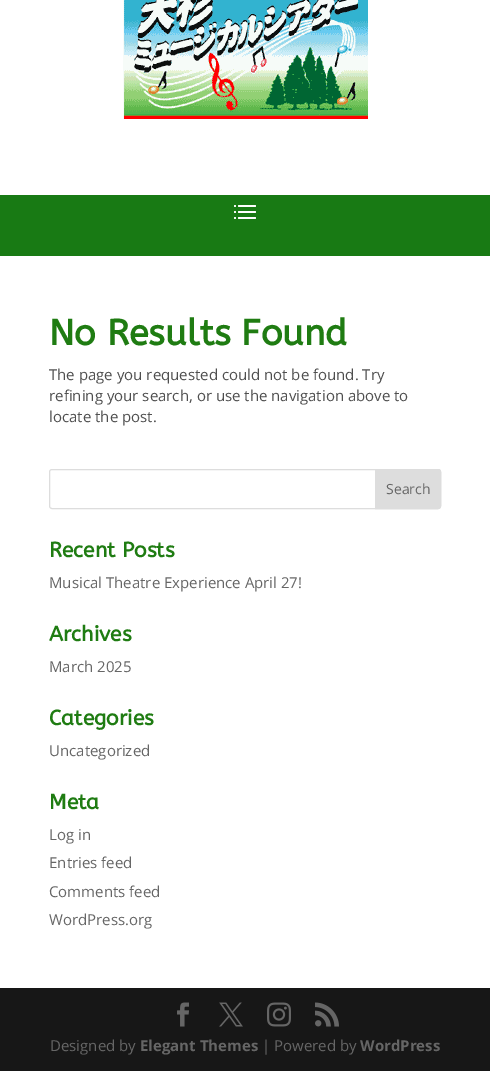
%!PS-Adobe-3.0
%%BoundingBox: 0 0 490 1071
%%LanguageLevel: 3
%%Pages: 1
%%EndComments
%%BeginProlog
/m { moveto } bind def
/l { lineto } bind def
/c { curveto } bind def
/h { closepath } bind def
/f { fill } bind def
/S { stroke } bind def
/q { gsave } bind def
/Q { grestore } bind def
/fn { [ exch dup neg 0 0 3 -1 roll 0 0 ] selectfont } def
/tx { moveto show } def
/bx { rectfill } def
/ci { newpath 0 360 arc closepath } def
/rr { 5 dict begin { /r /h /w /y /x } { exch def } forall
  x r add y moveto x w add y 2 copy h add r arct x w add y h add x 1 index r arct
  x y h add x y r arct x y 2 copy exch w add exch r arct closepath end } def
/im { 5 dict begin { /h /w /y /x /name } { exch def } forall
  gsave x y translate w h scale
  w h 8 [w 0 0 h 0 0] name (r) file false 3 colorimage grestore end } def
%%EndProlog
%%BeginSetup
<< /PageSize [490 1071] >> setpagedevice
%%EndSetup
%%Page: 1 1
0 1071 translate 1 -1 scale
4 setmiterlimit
1 setgray
0 0 490 1071 bx
(image0.raw) 123 0 245 119 im
0.094 0.478 0.078 setrgbcolor
0 195 490 61 bx
1 setgray
235 206 1 ci f
238 205 18 2 1 rr f
235 212 1 ci f
238 211 18 2 1 rr f
235 218 1 ci f
238 217 18 2 1 rr f
/ABeeZee-Bold 36 fn
0.122 0.486 0.071 setrgbcolor
(No Results Found) 49 345 tx
/OpenSans-Regular 15 fn
0.31 setgray
(The page you requested could not be found. Try) 49 380 tx
(refining your search, or use the navigation above to) 49 401 tx
(locate the post.) 49 422 tx
0.867 setgray
49.5 469.5 391 39 2.5 rr S
375.5 469.5 m 438 469.5 l 439.5 469.5 440.5 470.5 440.5 472 c 440.5 506 l 440.5 507.5 439.5 508.5 438 508.5 c 375.5 508.5 l h q f Q
S
/OpenSans-Regular 14 fn
0.4 setgray
(Search) 386 494 tx
/ABeeZee-Bold 21 fn
0.122 0.486 0.071 setrgbcolor
(Recent Posts) 49 557 tx
/OpenSans-Regular 15 fn
0.4 setgray
(Musical Theatre Experience April 27!) 49 588 tx
/ABeeZee-Bold 21 fn
0.122 0.486 0.071 setrgbcolor
(Archives) 49 641 tx
/OpenSans-Regular 15 fn
0.4 setgray
(March 2025) 49 672 tx
/ABeeZee-Bold 21 fn
0.122 0.486 0.071 setrgbcolor
(Categories) 49 725 tx
/OpenSans-Regular 15 fn
0.4 setgray
(Uncategorized) 49 756 tx
/ABeeZee-Bold 21 fn
0.122 0.486 0.071 setrgbcolor
(Meta) 49 809 tx
/OpenSans-Regular 15 fn
0.4 setgray
(Log in) 49 840 tx
(Entries feed) 49 868 tx
(Comments feed) 49 897 tx
(WordPress.org) 49 925 tx
0.09 setgray
0 988 490 83 bx
(image1.raw) 177 1002 12 25 im
(image2.raw) 219 1002 24 25 im
(image3.raw) 267 1002 24 25 im
(image4.raw) 315 1002 24 25 im
0.4 setgray
(Designed by) 50 1051 tx
/OpenSans-Bold 15 fn
(Elegant Themes) 140 1051 tx
/OpenSans-Regular 15 fn
(| Powered by) 262 1051 tx
/OpenSans-Bold 15 fn
(WordPress) 360 1051 tx
showpage
%%EOF
